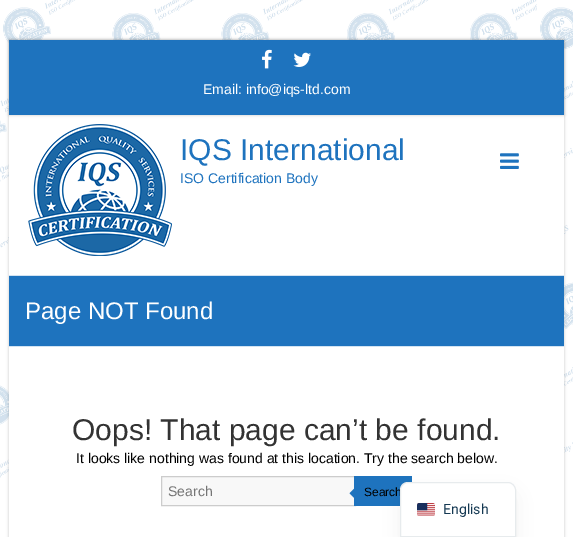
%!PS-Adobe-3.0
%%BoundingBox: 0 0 573 537
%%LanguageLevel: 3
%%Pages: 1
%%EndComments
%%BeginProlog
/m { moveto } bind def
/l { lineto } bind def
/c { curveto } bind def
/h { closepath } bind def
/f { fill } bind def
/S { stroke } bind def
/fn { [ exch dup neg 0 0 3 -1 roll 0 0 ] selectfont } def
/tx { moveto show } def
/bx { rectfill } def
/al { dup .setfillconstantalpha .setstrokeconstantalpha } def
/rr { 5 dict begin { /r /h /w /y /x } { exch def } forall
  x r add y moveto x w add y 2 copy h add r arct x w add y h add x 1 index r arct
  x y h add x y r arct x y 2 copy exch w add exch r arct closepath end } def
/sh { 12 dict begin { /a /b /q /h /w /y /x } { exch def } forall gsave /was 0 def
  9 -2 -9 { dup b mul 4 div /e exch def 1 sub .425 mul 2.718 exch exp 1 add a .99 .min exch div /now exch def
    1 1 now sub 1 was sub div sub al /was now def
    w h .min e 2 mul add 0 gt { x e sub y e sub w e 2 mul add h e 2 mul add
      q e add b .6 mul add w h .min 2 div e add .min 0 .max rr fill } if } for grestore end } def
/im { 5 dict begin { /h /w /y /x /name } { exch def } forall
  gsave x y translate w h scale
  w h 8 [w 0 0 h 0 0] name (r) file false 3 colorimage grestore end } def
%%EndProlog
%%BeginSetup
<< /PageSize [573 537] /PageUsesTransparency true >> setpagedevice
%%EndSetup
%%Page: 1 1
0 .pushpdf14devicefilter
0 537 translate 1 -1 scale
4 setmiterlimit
1 setgray
0 0 573 537 bx
(image0.raw) 0 0 573 537 im
0 setgray
9 40 555 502 0 1.5 0.2 sh
1 setgray
9 115 555 422 bx
0 setgray
9 40 555 75 0 1.5 0.2 sh
0.118 0.451 0.745 setrgbcolor
9 40 555 75 bx
(image1.raw) 262 49 10 20 im
(image2.raw) 293 52 18 15 im
/LiberationSans-Regular 14 fn
1 setgray
(Email: info@iqs-ltd.com) 203 94 tx
(image3.raw) 28 124 144 132 im
/LiberationSans-Regular 30 fn
0.118 0.451 0.745 setrgbcolor
(IQS International) 180 160 tx
/LiberationSans-Regular 14 fn
(ISO Certification Body) 180 183 tx
(image4.raw) 500 153 19 16 im
9 276 555 70 bx
0.824 0.89 0.949 setrgbcolor
9 275 555 1 bx
9 346 555 1 bx
/LiberationSans-Regular 24 fn
1 setgray
(Page NOT Found) 25 319 tx
/LiberationSans-Regular 30 fn
0.2 setgray
(Oops! That page can’t be found.) 72 440 tx
/LiberationSans-Regular 14 fn
0 setgray
(It looks like nothing was found at this location. Try the search below.) 76 463 tx
0.973 setgray
162 477 192 28 bx
0.8 setgray
161.5 476.5 194 29 rectstroke
0.459 setgray
(Search) 168 496 tx
0.118 0.451 0.745 setrgbcolor
354 476 58 30 bx
(image5.raw) 349 488 5 10 im
/LiberationSans-Regular 12 fn
0 setgray
(Search) 364 496 tx
400 492 116 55 8 10 0.05 sh
1 setgray
408 482 m 508 482 l 512.5 482 516 485.5 516 490 c 516 537 l 400 537 l 400 490 l 400 485.5 403.5 482 408 482 c h f
0.1 al
0.078 0.22 0.322 setrgbcolor
408 482.5 m 508 482.5 l 512 482.5 515.5 486 515.5 490 c 515.5 536.5 l 400.5 536.5 l 400.5 490 l 400.5 486 404 482.5 408 482.5 c h S
1 al
(image6.raw) 417 503 18 13 im
/Roboto-Regular 14 fn
(English) 443 514 tx
.poppdf14devicefilter showpage
%%EOF
